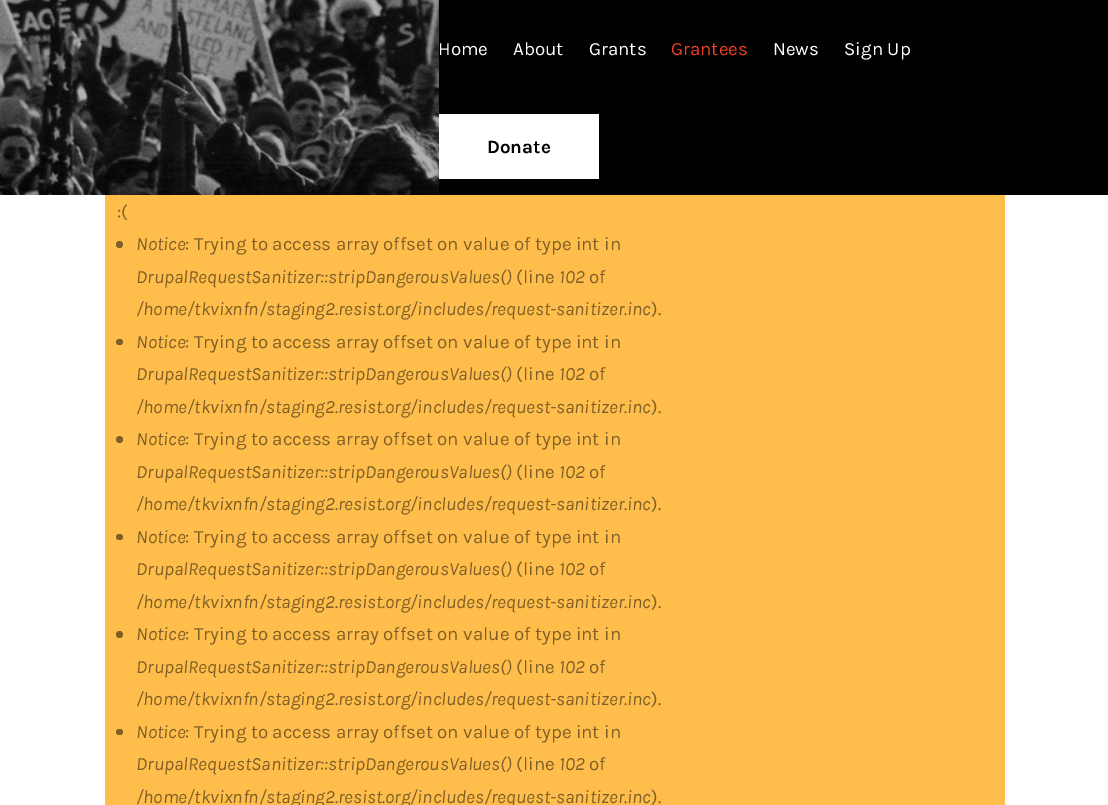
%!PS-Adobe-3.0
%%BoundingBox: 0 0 1108 805
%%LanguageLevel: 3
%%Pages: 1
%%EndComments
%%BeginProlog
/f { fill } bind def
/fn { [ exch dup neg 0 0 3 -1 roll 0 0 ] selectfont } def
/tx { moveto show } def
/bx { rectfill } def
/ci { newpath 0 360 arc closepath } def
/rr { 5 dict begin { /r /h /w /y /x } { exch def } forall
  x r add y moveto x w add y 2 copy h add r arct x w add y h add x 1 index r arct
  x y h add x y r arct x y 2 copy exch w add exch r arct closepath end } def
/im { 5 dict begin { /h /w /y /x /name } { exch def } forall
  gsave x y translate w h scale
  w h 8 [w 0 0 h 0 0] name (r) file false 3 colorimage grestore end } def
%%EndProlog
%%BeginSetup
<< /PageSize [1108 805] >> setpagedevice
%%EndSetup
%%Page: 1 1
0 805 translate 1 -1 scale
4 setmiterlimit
1 setgray
0 0 1108 805 bx
0 setgray
439 0 669 195 bx
(image0.raw) 0 0 439 195 im
/Karla-Regular 18.75 fn
1 setgray
(Home) 438 55 tx
(About) 513 55 tx
(Grants) 589 55 tx
0.929 0.251 0.141 setrgbcolor
(Grantees) 671 55 tx
1 setgray
(News) 773 55 tx
(Sign Up) 844 55 tx
439 114 160 65 bx
/Karla-Bold 18.75 fn
0 setgray
(Donate) 487 153 tx
1 0.745 0.298 setrgbcolor
105 195 900 610 bx
/Karla-Regular 18.75 fn
0.502 0.373 0.149 setrgbcolor
(:\() 117 218 tx
119.5 244.5 3.5 ci f
/Karla-Italic 18.75 fn
(Notice) 136 250 tx
/Karla-Regular 18.75 fn
(: Trying to access array offset on value of type int in) 185 250 tx
/Karla-Italic 18.75 fn
(DrupalRequestSanitizer::stripDangerousValues\(\)) 136 283 tx
/Karla-Regular 18.75 fn
(\(line) 516 283 tx
/Karla-Italic 18.75 fn
(102) 559 283 tx
/Karla-Regular 18.75 fn
(of) 589 283 tx
/Karla-Italic 18.75 fn
(/home/tkvixnfn/staging2.resist.org/includes/request-sanitizer.inc) 136 315 tx
/Karla-Regular 18.75 fn
(\).) 651 315 tx
116 339 7 6 3 rr f
/Karla-Italic 18.75 fn
(Notice) 136 348 tx
/Karla-Regular 18.75 fn
(: Trying to access array offset on value of type int in) 185 348 tx
/Karla-Italic 18.75 fn
(DrupalRequestSanitizer::stripDangerousValues\(\)) 136 380 tx
/Karla-Regular 18.75 fn
(\(line) 516 380 tx
/Karla-Italic 18.75 fn
(102) 559 380 tx
/Karla-Regular 18.75 fn
(of) 589 380 tx
/Karla-Italic 18.75 fn
(/home/tkvixnfn/staging2.resist.org/includes/request-sanitizer.inc) 136 413 tx
/Karla-Regular 18.75 fn
(\).) 651 413 tx
119.5 439.5 3.5 ci f
/Karla-Italic 18.75 fn
(Notice) 136 445 tx
/Karla-Regular 18.75 fn
(: Trying to access array offset on value of type int in) 185 445 tx
/Karla-Italic 18.75 fn
(DrupalRequestSanitizer::stripDangerousValues\(\)) 136 478 tx
/Karla-Regular 18.75 fn
(\(line) 516 478 tx
/Karla-Italic 18.75 fn
(102) 559 478 tx
/Karla-Regular 18.75 fn
(of) 589 478 tx
/Karla-Italic 18.75 fn
(/home/tkvixnfn/staging2.resist.org/includes/request-sanitizer.inc) 136 510 tx
/Karla-Regular 18.75 fn
(\).) 651 510 tx
116 534 7 6 3 rr f
/Karla-Italic 18.75 fn
(Notice) 136 543 tx
/Karla-Regular 18.75 fn
(: Trying to access array offset on value of type int in) 185 543 tx
/Karla-Italic 18.75 fn
(DrupalRequestSanitizer::stripDangerousValues\(\)) 136 575 tx
/Karla-Regular 18.75 fn
(\(line) 516 575 tx
/Karla-Italic 18.75 fn
(102) 559 575 tx
/Karla-Regular 18.75 fn
(of) 589 575 tx
/Karla-Italic 18.75 fn
(/home/tkvixnfn/staging2.resist.org/includes/request-sanitizer.inc) 136 608 tx
/Karla-Regular 18.75 fn
(\).) 651 608 tx
119.5 634.5 3.5 ci f
/Karla-Italic 18.75 fn
(Notice) 136 640 tx
/Karla-Regular 18.75 fn
(: Trying to access array offset on value of type int in) 185 640 tx
/Karla-Italic 18.75 fn
(DrupalRequestSanitizer::stripDangerousValues\(\)) 136 673 tx
/Karla-Regular 18.75 fn
(\(line) 516 673 tx
/Karla-Italic 18.75 fn
(102) 559 673 tx
/Karla-Regular 18.75 fn
(of) 589 673 tx
/Karla-Italic 18.75 fn
(/home/tkvixnfn/staging2.resist.org/includes/request-sanitizer.inc) 136 705 tx
/Karla-Regular 18.75 fn
(\).) 651 705 tx
116 729 7 6 3 rr f
/Karla-Italic 18.75 fn
(Notice) 136 738 tx
/Karla-Regular 18.75 fn
(: Trying to access array offset on value of type int in) 185 738 tx
/Karla-Italic 18.75 fn
(DrupalRequestSanitizer::stripDangerousValues\(\)) 136 770 tx
/Karla-Regular 18.75 fn
(\(line) 516 770 tx
/Karla-Italic 18.75 fn
(102) 559 770 tx
/Karla-Regular 18.75 fn
(of) 589 770 tx
/Karla-Italic 18.75 fn
(/home/tkvixnfn/staging2.resist.org/includes/request-sanitizer.inc) 136 803 tx
/Karla-Regular 18.75 fn
(\).) 651 803 tx
showpage
%%EOF
